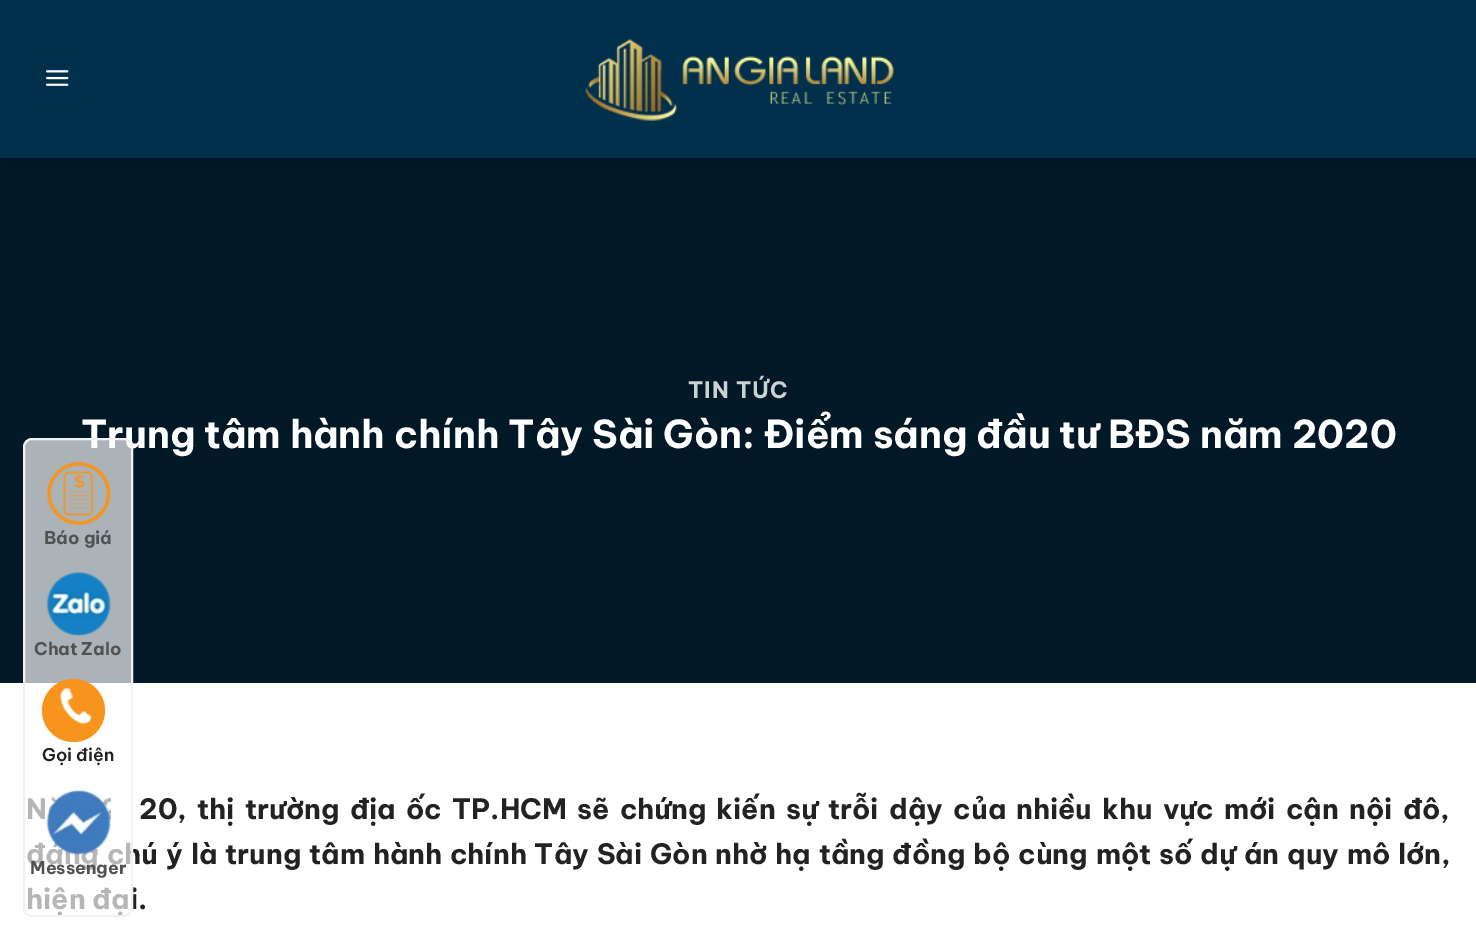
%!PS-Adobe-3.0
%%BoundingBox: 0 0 1476 952
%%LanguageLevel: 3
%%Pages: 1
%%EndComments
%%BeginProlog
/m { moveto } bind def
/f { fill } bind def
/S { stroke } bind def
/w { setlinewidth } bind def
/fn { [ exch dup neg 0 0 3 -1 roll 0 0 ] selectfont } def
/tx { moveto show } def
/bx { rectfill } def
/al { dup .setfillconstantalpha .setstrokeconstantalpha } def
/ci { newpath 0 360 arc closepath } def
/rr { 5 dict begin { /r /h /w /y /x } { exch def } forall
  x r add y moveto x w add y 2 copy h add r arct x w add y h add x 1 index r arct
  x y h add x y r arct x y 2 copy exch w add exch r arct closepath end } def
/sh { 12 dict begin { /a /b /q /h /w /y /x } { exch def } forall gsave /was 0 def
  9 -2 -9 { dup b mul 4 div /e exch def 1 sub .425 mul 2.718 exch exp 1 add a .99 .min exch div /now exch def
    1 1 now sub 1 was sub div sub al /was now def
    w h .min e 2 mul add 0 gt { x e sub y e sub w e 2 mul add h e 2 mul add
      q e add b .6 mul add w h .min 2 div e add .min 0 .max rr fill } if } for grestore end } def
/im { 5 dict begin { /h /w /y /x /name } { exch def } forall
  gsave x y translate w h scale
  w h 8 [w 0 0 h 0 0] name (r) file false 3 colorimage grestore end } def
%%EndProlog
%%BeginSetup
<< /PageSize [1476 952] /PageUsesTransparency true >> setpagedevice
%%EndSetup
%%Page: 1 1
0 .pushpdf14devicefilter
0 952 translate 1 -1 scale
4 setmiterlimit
1 setgray
0 0 1476 952 bx
0.004 0.094 0.149 setrgbcolor
0 158 1476 525 bx
0 setgray
2 2 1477 157 0 9 0.15 sh
0.004 0.188 0.298 setrgbcolor
0 0 1476 158 bx
0.004 0.18 0.282 setrgbcolor
2 w
31 52 54 54 8 rr S
(image0.raw) 46 70 23 16 im
(image1.raw) 585 39 309 82 im
/BeVietnamPro-Bold 22.5 fn
0.8 0.82 0.831 setrgbcolor
688 398 m 1 0 (TIN TỨC) ashow
/BeVietnamPro-Bold 38.5 fn
1 setgray
(Trung tâm hành chính Tây Sài Gòn: Điểm sáng đầu tư BĐS năm 2020) 81 448 tx
/BeVietnamPro-Bold 28 fn
0.133 setgray
26 819 m 3.75 0 32 (N) widthshow
26 864 m 1.4 0 32 (đáng chú ý là trung tâm hành chính Tây Sài Gòn nhờ hạ tầng đồng bộ cùng một số dự án quy mô lớn,) widthshow
(hiện đại.) 26 909 tx
0.67 al
1 setgray
24 439 108 477 8 rr f
1 al
0.949 setgray
24 439 108 477 8 rr S
(image2.raw) 46 461 65 65 im
/BeVietnamPro-Bold 17.5 fn
0.318 setgray
(Báo giá) 44 544 tx
(image3.raw) 46 572 65 64 im
(Chat Zalo) 34 655 tx
0.969 0.58 0.114 setrgbcolor
73.5 710.5 31.5 ci f
(image4.raw) 60 687 32 38 im
/BeVietnamPro-SemiBold 17.5 fn
0.133 setgray
(Gọi điện) 42 761 tx
(image5.raw) 46 790 65 65 im
/BeVietnamPro-Bold 17.5 fn
0.318 setgray
(Messenger) 30 874 tx
/BeVietnamPro-Bold 28 fn
0.133 setgray
139 819 m 3.75 0 32 (20, thị trường địa ốc TP.HCM sẽ chứng kiến sự trỗi dậy của nhiều khu vực mới cận nội đô,) widthshow
.poppdf14devicefilter showpage
%%EOF
